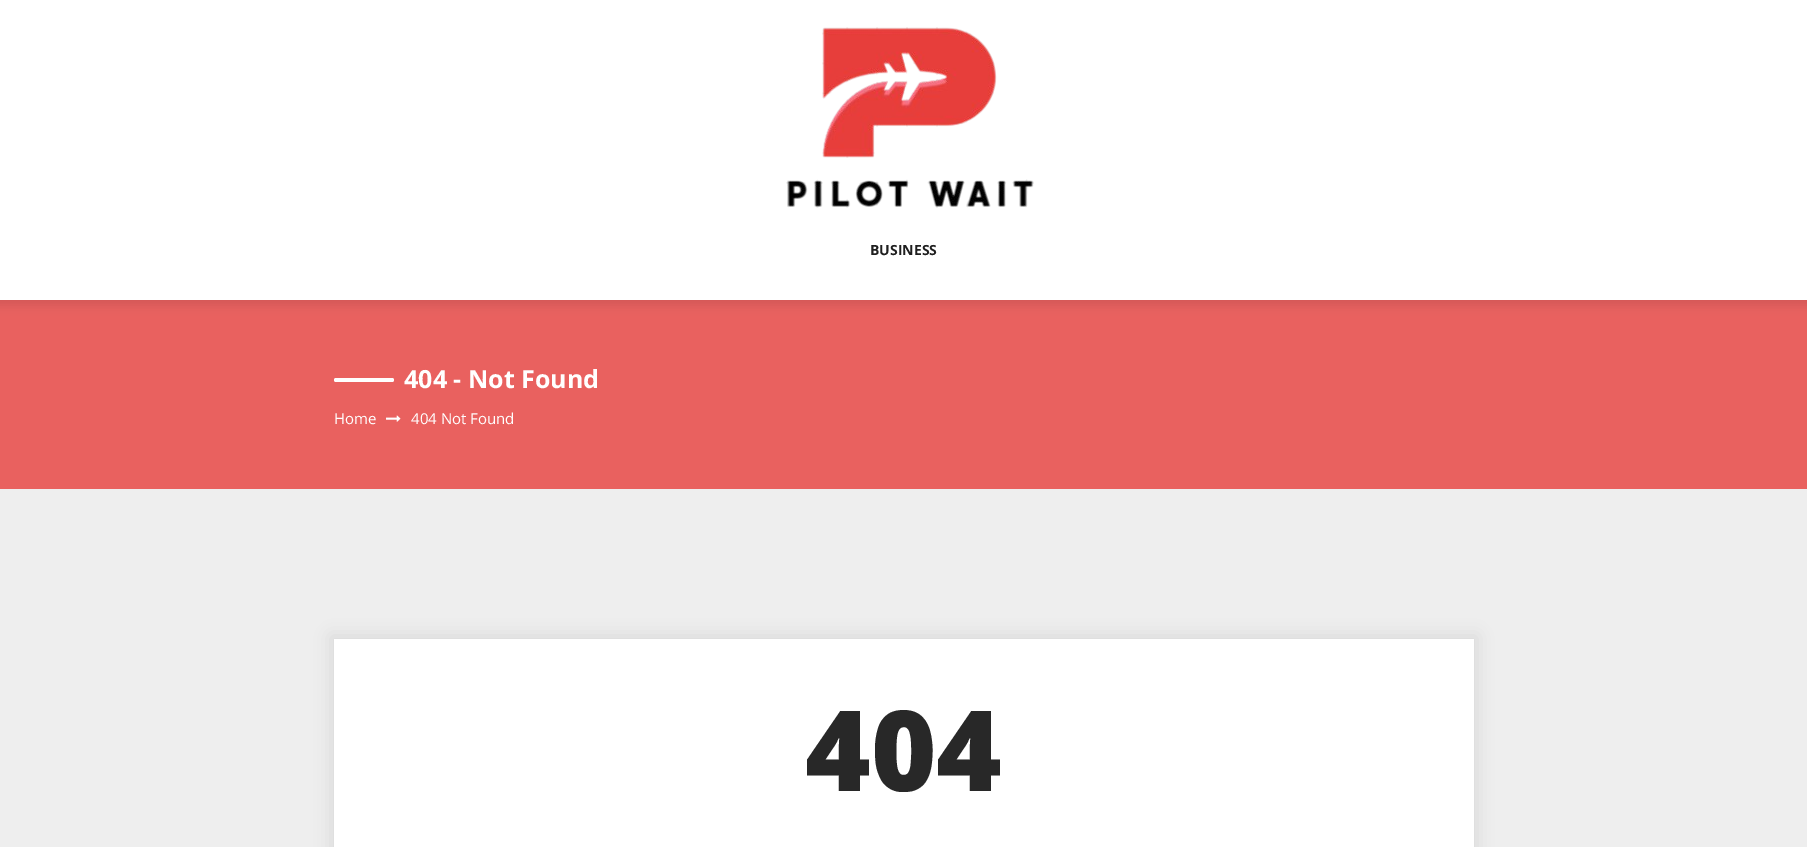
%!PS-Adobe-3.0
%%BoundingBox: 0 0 1807 847
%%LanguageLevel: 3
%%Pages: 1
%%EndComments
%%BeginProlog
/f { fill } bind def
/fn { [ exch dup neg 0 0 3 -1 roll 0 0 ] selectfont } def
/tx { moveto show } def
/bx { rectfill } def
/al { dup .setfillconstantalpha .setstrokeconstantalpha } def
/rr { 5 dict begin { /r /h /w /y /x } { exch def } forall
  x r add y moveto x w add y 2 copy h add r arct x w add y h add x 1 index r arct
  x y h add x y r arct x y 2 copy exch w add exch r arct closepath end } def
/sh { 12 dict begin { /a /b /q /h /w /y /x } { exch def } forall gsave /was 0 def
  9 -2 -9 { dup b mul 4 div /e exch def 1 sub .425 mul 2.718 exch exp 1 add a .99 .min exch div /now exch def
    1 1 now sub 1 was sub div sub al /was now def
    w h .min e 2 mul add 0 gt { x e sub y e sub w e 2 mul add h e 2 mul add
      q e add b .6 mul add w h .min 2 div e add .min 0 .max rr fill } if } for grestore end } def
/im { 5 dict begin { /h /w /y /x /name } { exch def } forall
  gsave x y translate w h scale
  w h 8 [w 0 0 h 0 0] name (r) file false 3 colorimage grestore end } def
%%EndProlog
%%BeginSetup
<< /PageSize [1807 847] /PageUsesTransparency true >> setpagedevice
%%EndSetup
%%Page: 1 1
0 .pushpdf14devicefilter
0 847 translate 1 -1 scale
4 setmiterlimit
0.933 setgray
0 0 1807 847 bx
0.914 0.38 0.373 setrgbcolor
0 300 1807 189 bx
0 setgray
-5 -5 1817 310 0 5 0.1 sh
1 setgray
0 0 1807 300 bx
(image0.raw) 786 27 248 181 im
/OpenSans-Bold 14 fn
0.122 setgray
(BUSINESS) 870 255 tx
1 setgray
334 378 60 4 2 rr f
/OpenSans-Bold 25 fn
(404 - Not Found) 404 388 tx
/OpenSans-Regular 15 fn
(Home) 334 424 tx
(image1.raw) 386 415 15 7 im
(404 Not Found) 411 424 tx
0 setgray
331 636 1146 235 0 8 0.08 sh
1 setgray
334 639 1140 208 bx
/OpenSans-ExtraBold 112 fn
0.157 setgray
(404) 805 791 tx
.poppdf14devicefilter showpage
%%EOF
